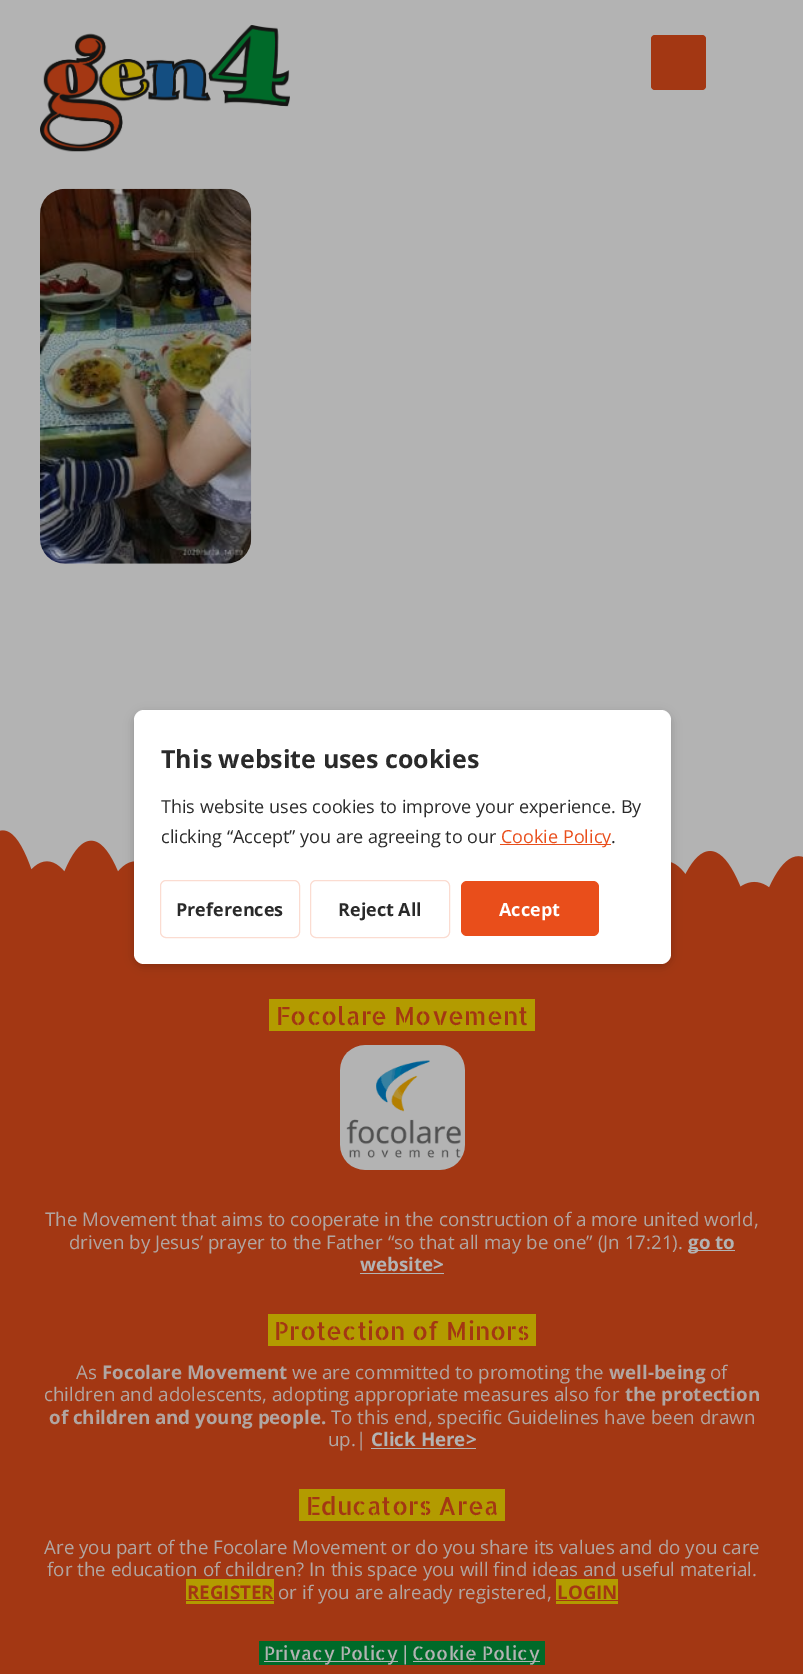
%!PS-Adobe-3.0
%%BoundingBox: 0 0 803 1674
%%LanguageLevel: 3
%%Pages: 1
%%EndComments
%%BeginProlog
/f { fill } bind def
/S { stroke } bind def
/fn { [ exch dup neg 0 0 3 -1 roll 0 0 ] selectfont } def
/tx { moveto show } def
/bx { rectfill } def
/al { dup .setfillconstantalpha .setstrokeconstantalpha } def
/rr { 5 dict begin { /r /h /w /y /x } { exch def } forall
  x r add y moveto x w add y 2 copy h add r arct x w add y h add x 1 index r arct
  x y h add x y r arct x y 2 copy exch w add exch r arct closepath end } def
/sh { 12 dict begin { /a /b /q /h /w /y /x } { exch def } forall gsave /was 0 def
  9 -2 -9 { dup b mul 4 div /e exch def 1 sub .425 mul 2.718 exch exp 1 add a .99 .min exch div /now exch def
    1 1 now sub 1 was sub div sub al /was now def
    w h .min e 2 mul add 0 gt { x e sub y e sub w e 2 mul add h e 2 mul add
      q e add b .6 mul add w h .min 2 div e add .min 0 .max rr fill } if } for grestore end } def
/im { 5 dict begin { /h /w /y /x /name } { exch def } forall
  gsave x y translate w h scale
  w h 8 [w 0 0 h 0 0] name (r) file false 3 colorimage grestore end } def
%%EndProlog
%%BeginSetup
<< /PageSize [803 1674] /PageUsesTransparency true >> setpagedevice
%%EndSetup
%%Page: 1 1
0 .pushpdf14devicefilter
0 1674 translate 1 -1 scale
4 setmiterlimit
0.702 setgray
0 0 803 1674 bx
(image2.raw) 0 830 803 93 im
0.639 0.216 0.075 setrgbcolor
0 923 803 751 bx
0 setgray
134 713 537 253 10 5 0.2 sh
1 setgray
134 710 537 254 10 rr f
/OpenSans-Bold 25 fn
0.165 setgray
(This website uses cookies) 161 768 tx
/OpenSans-Regular 18 fn
(This website uses cookies to improve your experience. By) 161 813 tx
(clicking “Accept” you are agreeing to our) 161 843 tx
0.914 0.306 0.106 setrgbcolor
500 844 111 1 bx
(Cookie Policy) 501 843 tx
0.165 setgray
(.) 611 843 tx
0.984 0.863 0.82 setrgbcolor
160.5 880.5 139 57 5.5 rr S
/OpenSans-Bold 18 fn
0.165 setgray
(Preferences) 176 916 tx
0.984 0.863 0.82 setrgbcolor
310.5 880.5 139 57 5.5 rr S
0.165 setgray
(Reject All) 338 916 tx
0.914 0.306 0.106 setrgbcolor
461 881 138 55 6 rr f
1 setgray
(Accept) 499 916 tx
(image0.raw) 40 25 250 127 im
0.639 0.216 0.075 setrgbcolor
651 35 55 55 4 rr f
(image1.raw) 40 188 212 376 im
0.702 0.608 0 setrgbcolor
269 999 266 32 bx
/AllertaStencil-Regular 25 fn
0.639 0.216 0.075 setrgbcolor
(Focolare Movement) 276 1025 tx
(image3.raw) 340 1045 125 125 im
/OpenSans-Regular 18.75 fn
0.694 0.651 0.635 setrgbcolor
(The Movement that aims to cooperate in the construction of a more united world,) 45 1226 tx
(driven by Jesus’ prayer to the Father “so that all may be one” \(Jn 17:21\).) 69 1249 tx
0.702 setgray
688 1250 47 1 bx
/OpenSans-Bold 18.75 fn
(go to) 688 1249 tx
(website>) 360 1271 tx
360 1273 84 1 bx
0.702 0.608 0 setrgbcolor
268 1314 268 32 bx
/AllertaStencil-Regular 25 fn
0.639 0.216 0.075 setrgbcolor
(Protection of Minors) 274 1340 tx
/OpenSans-Regular 18.75 fn
0.694 0.651 0.635 setrgbcolor
(As) 76 1379 tx
/OpenSans-Bold 18.75 fn
(Focolare Movement) 102 1379 tx
/OpenSans-Regular 18.75 fn
(we are committed to promoting the) 292 1379 tx
/OpenSans-Bold 18.75 fn
(well-being) 609 1379 tx
/OpenSans-Regular 18.75 fn
(of) 710 1379 tx
(children and adolescents, adopting appropriate measures also for) 44 1401 tx
/OpenSans-Bold 18.75 fn
(the protection) 625 1401 tx
(of children and young people.) 49 1424 tx
/OpenSans-Regular 18.75 fn
(To this end, specific Guidelines have been drawn) 331 1424 tx
(up.|) 328 1446 tx
/OpenSans-Bold 18.75 fn
0.702 setgray
(Click Here>) 371 1446 tx
371 1448 105 1 bx
0.702 0.608 0 setrgbcolor
299 1489 206 32 bx
/AllertaStencil-Regular 25 fn
0.639 0.216 0.075 setrgbcolor
(Educators Area) 306 1515 tx
/OpenSans-Regular 18.75 fn
0.694 0.651 0.635 setrgbcolor
(Are you part of the Focolare Movement or do you share its values and do you care) 44 1554 tx
(for the education of children? In this space you will find ideas and useful material.) 47 1576 tx
0.702 0.608 0 setrgbcolor
186 1579 88 25 bx
/OpenSans-Bold 18.75 fn
0.639 0.216 0.075 setrgbcolor
(REGISTER) 187 1599 tx
186 1600 88 1 bx
/OpenSans-Regular 18.75 fn
0.694 0.651 0.635 setrgbcolor
(or if you are already registered,) 278 1599 tx
0.702 0.608 0 setrgbcolor
556 1579 62 25 bx
/OpenSans-Bold 18.75 fn
0.639 0.216 0.075 setrgbcolor
(LOGIN) 557 1599 tx
556 1600 62 1 bx
0 0.416 0.161 setrgbcolor
259 1641 286 24 bx
0.702 setgray
264 1661 134 1 bx
/AllertaStencil-Regular 18.75 fn
(Privacy Policy |) 264 1660 tx
413 1661 127 1 bx
(Cookie Policy) 412 1660 tx
.poppdf14devicefilter showpage
%%EOF
